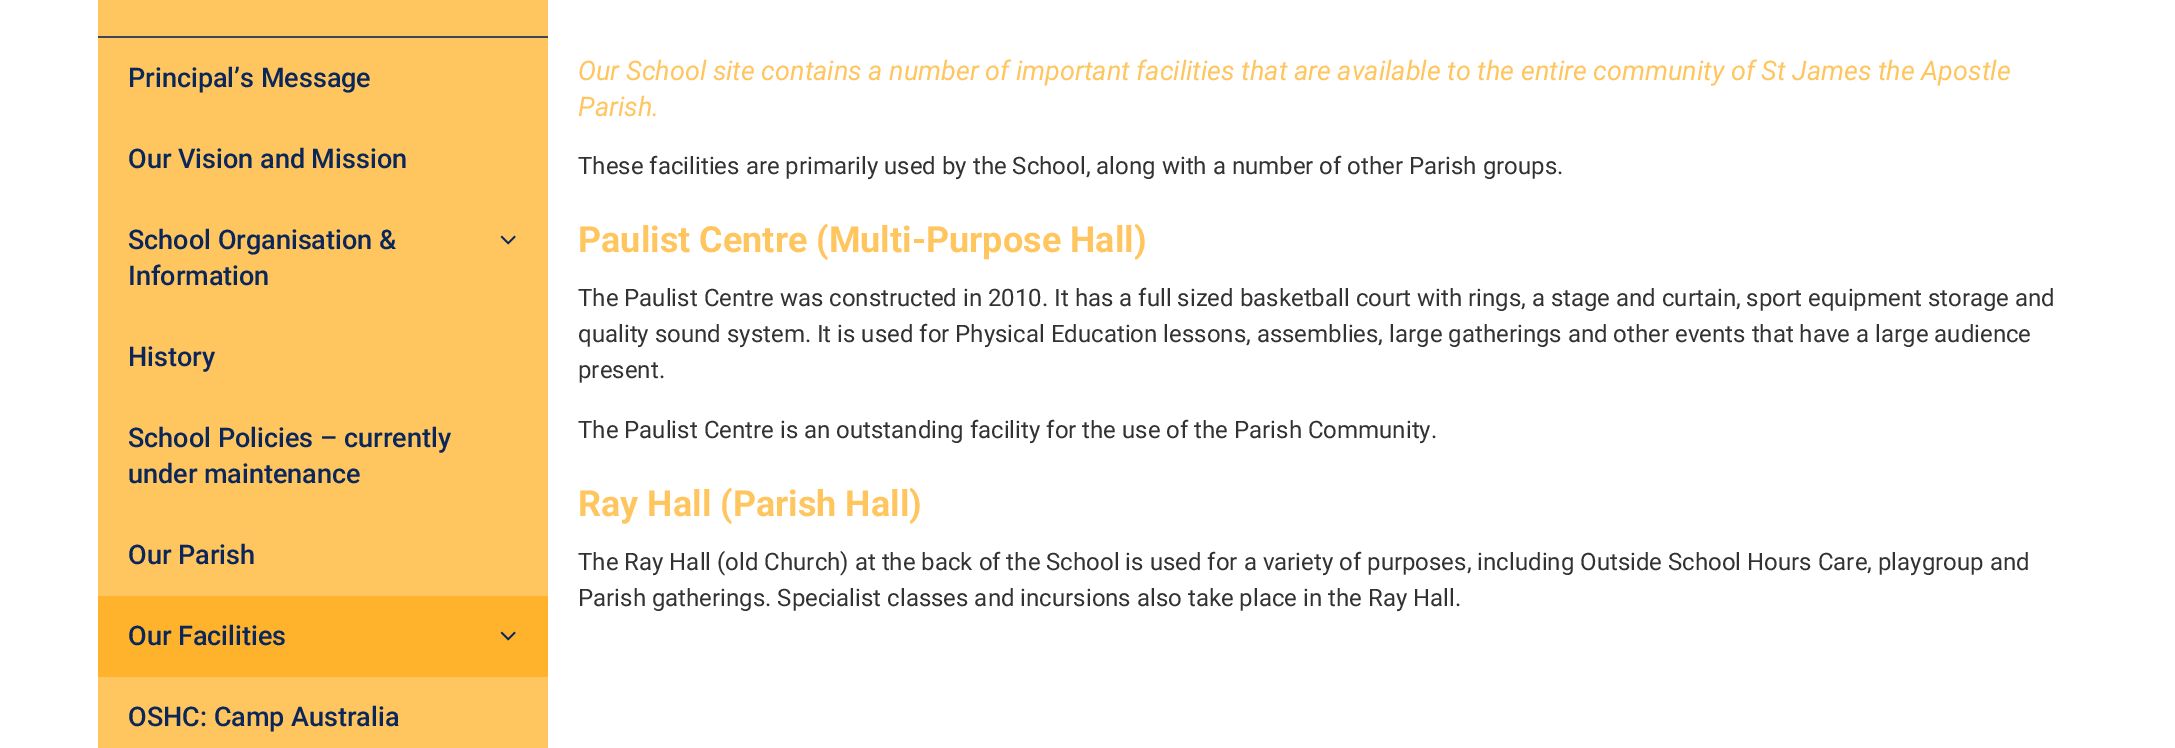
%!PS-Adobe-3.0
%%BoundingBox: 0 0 2175 748
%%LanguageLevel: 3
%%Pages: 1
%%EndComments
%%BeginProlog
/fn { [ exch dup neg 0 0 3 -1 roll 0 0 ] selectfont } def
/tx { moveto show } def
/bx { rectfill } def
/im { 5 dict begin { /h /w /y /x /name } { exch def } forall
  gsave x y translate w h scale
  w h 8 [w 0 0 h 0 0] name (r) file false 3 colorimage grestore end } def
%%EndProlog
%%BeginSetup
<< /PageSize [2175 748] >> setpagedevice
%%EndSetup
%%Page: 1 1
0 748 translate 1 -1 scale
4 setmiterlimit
1 setgray
0 0 2175 748 bx
1 0.773 0.373 setrgbcolor
98 0 450 748 bx
0.235 0.275 0.353 setrgbcolor
98 36 450 2 bx
/Roboto-Medium 27 fn
0.043 0.149 0.349 setrgbcolor
(Principal’s Message) 128 87 tx
(Our Vision and Mission) 128 168 tx
(School Organisation &) 128 249 tx
(image0.raw) 500 235 16 10 im
(Information) 128 285 tx
(History) 128 366 tx
(School Policies – currently) 128 447 tx
(under maintenance) 128 483 tx
(Our Parish) 128 564 tx
1 0.702 0.173 setrgbcolor
98 596 450 81 bx
0.043 0.149 0.349 setrgbcolor
(Our Facilities) 128 645 tx
(image1.raw) 500 631 16 10 im
(OSHC: Camp Australia) 128 726 tx
/Roboto-Italic 27 fn
1 0.773 0.373 setrgbcolor
(Our School site contains a number of important facilities that are available to the entire community of St James the Apostle) 578 80 tx
(Parish.) 578 116 tx
/Roboto-Regular 24 fn
0.196 setgray
(These facilities are primarily used by the School, along with a number of other Parish groups.) 578 174 tx
/Roboto-Bold 36 fn
1 0.773 0.373 setrgbcolor
(Paulist Centre \(Multi-Purpose Hall\)) 578 252 tx
/Roboto-Regular 24 fn
0.196 setgray
(The Paulist Centre was constructed in 2010. It has a full sized basketball court with rings, a stage and curtain, sport equipment storage and) 578 306 tx
(quality sound system. It is used for Physical Education lessons, assemblies, large gatherings and other events that have a large audience) 578 342 tx
(present.) 578 378 tx
(The Paulist Centre is an outstanding facility for the use of the Parish Community.) 578 438 tx
/Roboto-Bold 36 fn
1 0.773 0.373 setrgbcolor
(Ray Hall \(Parish Hall\)) 578 516 tx
/Roboto-Regular 24 fn
0.196 setgray
(The Ray Hall \(old Church\) at the back of the School is used for a variety of purposes, including Outside School Hours Care, playgroup and) 578 570 tx
(Parish gatherings. Specialist classes and incursions also take place in the Ray Hall.) 578 606 tx
showpage
%%EOF
